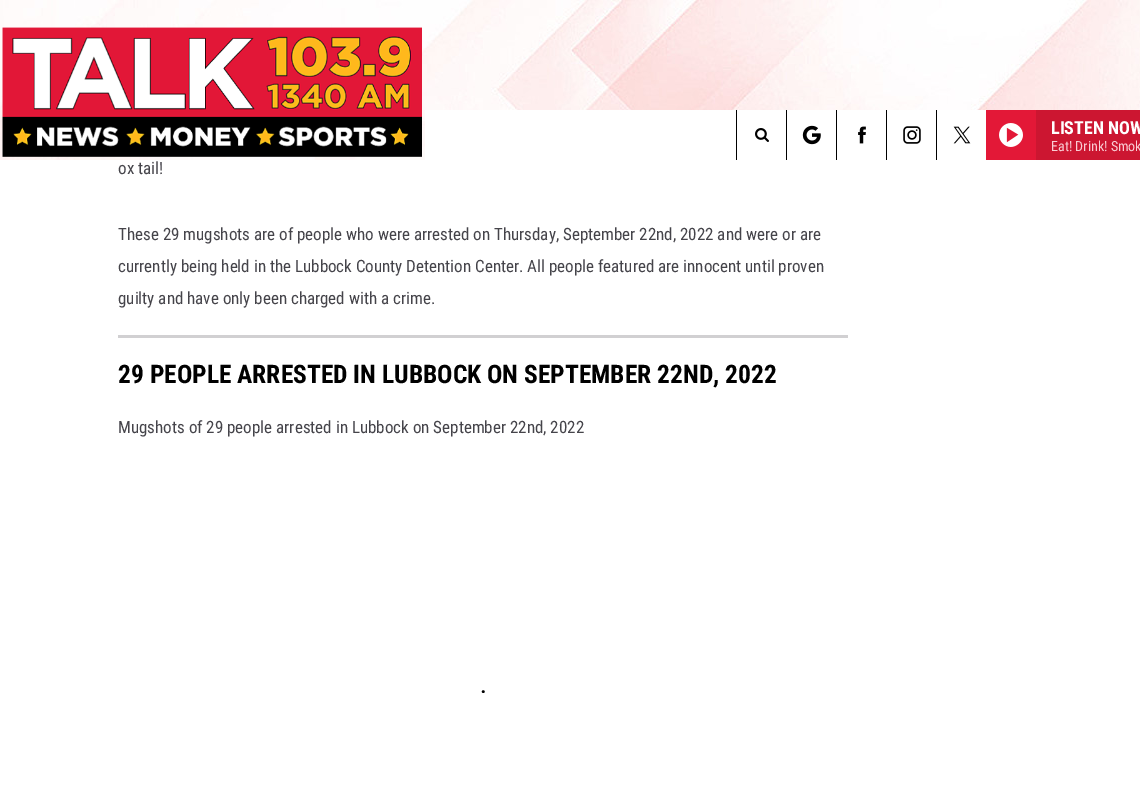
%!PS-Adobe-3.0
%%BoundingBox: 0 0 1140 791
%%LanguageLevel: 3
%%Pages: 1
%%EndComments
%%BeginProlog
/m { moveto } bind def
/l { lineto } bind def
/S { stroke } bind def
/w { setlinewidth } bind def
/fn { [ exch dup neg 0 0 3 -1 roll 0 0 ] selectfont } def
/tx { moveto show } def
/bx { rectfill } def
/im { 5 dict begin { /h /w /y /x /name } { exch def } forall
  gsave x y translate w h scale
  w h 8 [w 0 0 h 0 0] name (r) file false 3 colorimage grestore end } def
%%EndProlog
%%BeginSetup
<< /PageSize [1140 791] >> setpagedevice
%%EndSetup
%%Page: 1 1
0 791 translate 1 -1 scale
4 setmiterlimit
1 setgray
0 0 1140 791 bx
(image0.raw) 0 0 1140 160 im
(image1.raw) 2 27 420 130 im
425 110 561 50 bx
0 setgray
736 110 1 50 bx
(image2.raw) 755 128 14 14 im
786 110 1 50 bx
(image3.raw) 802 125 19 20 im
836 110 1 50 bx
(image4.raw) 858 126 8 18 im
886 110 1 50 bx
(image5.raw) 903 126 18 18 im
936 110 1 50 bx
(image6.raw) 953 126 18 18 im
0.89 0.094 0.216 setrgbcolor
986 110 50 50 bx
(image7.raw) 999 123 24 24 im
0.8 0.086 0.192 setrgbcolor
1036 110 104 50 bx
/RobotoCondensed-Bold 18 fn
1 setgray
(LISTEN NOW) 1051 134 tx
/RobotoCondensed-Regular 14 fn
0.98 0.804 0.831 setrgbcolor
(Eat! Drink! Smok) 1051 151 tx
/RobotoCondensed-Regular 17 fn
0.271 0.267 0.29 setrgbcolor
(ox tail!) 118 174 tx
(These 29 mugshots are of people who were arrested on Thursday, September 22nd, 2022 and were or are) 118 240 tx
(currently being held in the Lubbock County Detention Center. All people featured are innocent until proven) 118 272 tx
(guilty and have only been charged with a crime.) 118 304 tx
0.82 0.816 0.824 setrgbcolor
118 335 730 3 bx
/RobotoCondensed-Bold 25.5 fn
0 setgray
(29 PEOPLE ARRESTED IN LUBBOCK ON SEPTEMBER 22ND, 2022) 118 383 tx
/RobotoCondensed-Regular 17 fn
0.271 0.267 0.29 setrgbcolor
(Mugshots of 29 people arrested in Lubbock on September 22nd, 2022) 118 433 tx
0 setgray
2.4 w
1 setlinecap
483 691.5 m 483.5 691.5 l S
showpage
%%EOF
